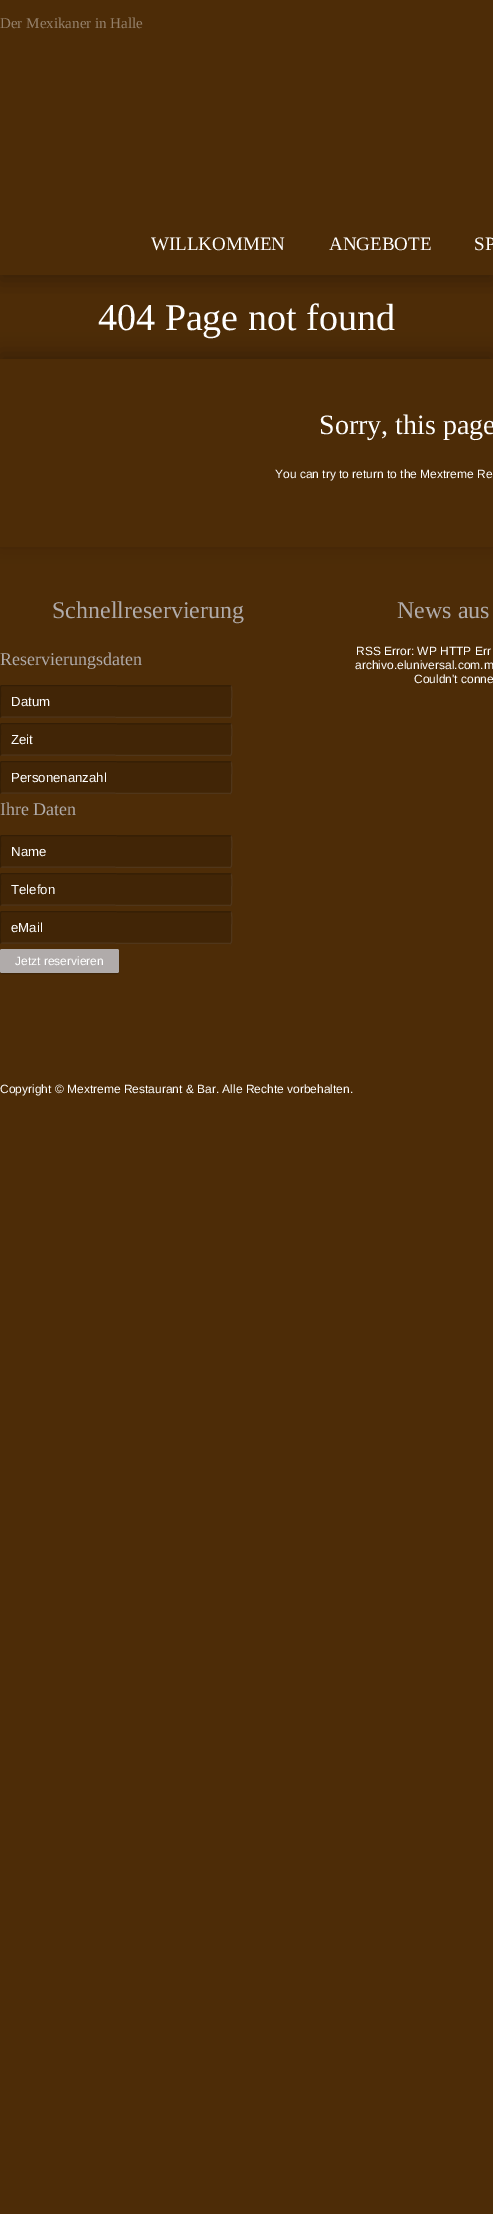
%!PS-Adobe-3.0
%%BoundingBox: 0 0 493 2214
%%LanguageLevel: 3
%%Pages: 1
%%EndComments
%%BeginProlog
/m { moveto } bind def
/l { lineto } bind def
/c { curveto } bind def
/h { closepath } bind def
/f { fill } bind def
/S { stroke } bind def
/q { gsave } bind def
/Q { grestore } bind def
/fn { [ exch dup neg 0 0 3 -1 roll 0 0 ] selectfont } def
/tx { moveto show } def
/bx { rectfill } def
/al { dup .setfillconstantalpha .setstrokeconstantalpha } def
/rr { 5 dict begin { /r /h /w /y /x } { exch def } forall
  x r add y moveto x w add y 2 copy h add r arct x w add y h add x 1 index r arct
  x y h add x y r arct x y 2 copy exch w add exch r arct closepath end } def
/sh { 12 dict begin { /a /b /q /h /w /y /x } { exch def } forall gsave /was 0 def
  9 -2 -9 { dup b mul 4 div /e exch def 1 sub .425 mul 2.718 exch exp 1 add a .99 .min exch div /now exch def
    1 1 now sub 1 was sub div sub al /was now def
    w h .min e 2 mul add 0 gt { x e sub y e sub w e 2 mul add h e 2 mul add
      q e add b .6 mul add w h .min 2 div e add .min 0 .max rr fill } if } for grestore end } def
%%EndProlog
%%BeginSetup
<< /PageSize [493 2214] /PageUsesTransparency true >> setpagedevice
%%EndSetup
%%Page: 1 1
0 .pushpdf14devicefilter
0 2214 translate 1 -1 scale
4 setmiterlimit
0.302 0.173 0.027 setrgbcolor
0 0 493 2214 bx
q
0 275 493 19 rectclip
0 setgray
0 5 493 275 0 10 0.25 sh
Q
/LiberationSerif-Regular 15 fn
0.58 0.502 0.416 setrgbcolor
(Der Mexikaner in Halle) 0 28 tx
/LiberationSerif-Regular 19 fn
1 setgray
(WILLKOMMEN) 151 250 tx
(ANGEBOTE) 329 250 tx
(SP) 474 250 tx
/LiberationSerif-Regular 38 fn
(404 Page not found) 98 330 tx
q
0 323 m 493 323 l 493 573 l 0 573 l h 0 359 m 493 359 l 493 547 l 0 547 l h eoclip newpath
0 setgray
0 354 493 188 0 10 0.25 sh
Q
/LiberationSerif-Regular 28 fn
(Sorry, this page) 319 434 tx
/LiberationSans-Regular 12 fn
(You can try to return to the Mextreme Re) 275 478 tx
/LiberationSerif-Regular 24 fn
0.69 0.671 0.667 setrgbcolor
(Schnellreservierung) 52 618 tx
/LiberationSerif-Regular 18 fn
(Reservierungsdaten) 0 665 tx
0.255 0.145 0.024 setrgbcolor
0 685 232 33 2 rr f
0.314 0.212 0.102 setrgbcolor
231 686 m 232.5 687 231.5 703.5 231.5 706.5 c 231.5 711 l 231.5 711.5 232.5 717.5 230 717.5 c 1 717 l S
0.204 0.118 0.02 setrgbcolor
1 717 m -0.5 716 0.5 699.5 0.5 696.5 c 0.5 692 l 0.5 691.5 -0.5 685.5 2 685.5 c 231 686 l S
/LiberationSans-Regular 13.25 fn
1 setgray
(Datum) 11 706 tx
0.255 0.145 0.024 setrgbcolor
0 723 232 33 2 rr f
0.314 0.212 0.102 setrgbcolor
231 724 m 232.5 725 231.5 741.5 231.5 744.5 c 231.5 749 l 231.5 749.5 232.5 755.5 230 755.5 c 1 755 l S
0.204 0.118 0.02 setrgbcolor
1 755 m -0.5 754 0.5 737.5 0.5 734.5 c 0.5 730 l 0.5 729.5 -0.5 723.5 2 723.5 c 231 724 l S
1 setgray
(Zeit) 11 744 tx
0.255 0.145 0.024 setrgbcolor
0 761 232 33 2 rr f
0.314 0.212 0.102 setrgbcolor
231 762 m 232.5 763 231.5 779.5 231.5 782.5 c 231.5 787 l 231.5 787.5 232.5 793.5 230 793.5 c 1 793 l S
0.204 0.118 0.02 setrgbcolor
1 793 m -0.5 792 0.5 775.5 0.5 772.5 c 0.5 768 l 0.5 767.5 -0.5 761.5 2 761.5 c 231 762 l S
1 setgray
(Personenanzahl) 11 782 tx
/LiberationSerif-Regular 18 fn
0.69 0.671 0.667 setrgbcolor
(Ihre Daten) 0 815 tx
0.255 0.145 0.024 setrgbcolor
0 835 232 33 2 rr f
0.314 0.212 0.102 setrgbcolor
231 836 m 232.5 837 231.5 853.5 231.5 856.5 c 231.5 861 l 231.5 861.5 232.5 867.5 230 867.5 c 1 867 l S
0.204 0.118 0.02 setrgbcolor
1 867 m -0.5 866 0.5 849.5 0.5 846.5 c 0.5 842 l 0.5 841.5 -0.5 835.5 2 835.5 c 231 836 l S
/LiberationSans-Regular 13.25 fn
1 setgray
(Name) 11 856 tx
0.255 0.145 0.024 setrgbcolor
0 873 232 33 2 rr f
0.314 0.212 0.102 setrgbcolor
231 874 m 232.5 875 231.5 891.5 231.5 894.5 c 231.5 899 l 231.5 899.5 232.5 905.5 230 905.5 c 1 905 l S
0.204 0.118 0.02 setrgbcolor
1 905 m -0.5 904 0.5 887.5 0.5 884.5 c 0.5 880 l 0.5 879.5 -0.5 873.5 2 873.5 c 231 874 l S
1 setgray
(Telefon) 11 894 tx
0.255 0.145 0.024 setrgbcolor
0 911 232 33 2 rr f
0.314 0.212 0.102 setrgbcolor
231 912 m 232.5 913 231.5 929.5 231.5 932.5 c 231.5 937 l 231.5 937.5 232.5 943.5 230 943.5 c 1 943 l S
0.204 0.118 0.02 setrgbcolor
1 943 m -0.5 942 0.5 925.5 0.5 922.5 c 0.5 918 l 0.5 917.5 -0.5 911.5 2 911.5 c 231 912 l S
1 setgray
(eMail) 11 932 tx
0 setgray
0 950 119 24 2 0.5 0.2 sh
0.69 0.671 0.667 setrgbcolor
0 949 119 24 2 rr f
/LiberationSans-Regular 12 fn
1 setgray
(Jetzt reservieren) 15 965 tx
/LiberationSerif-Regular 24 fn
0.69 0.671 0.667 setrgbcolor
(News aus) 397 618 tx
/LiberationSans-Regular 12 fn
1 setgray
(RSS Error: WP HTTP Err) 356 655 tx
(archivo.eluniversal.com.m) 355 669 tx
(Couldn't conne) 414 683 tx
(Copyright © Mextreme Restaurant & Bar. Alle Rechte vorbehalten.) 0 1093 tx
.poppdf14devicefilter showpage
%%EOF
